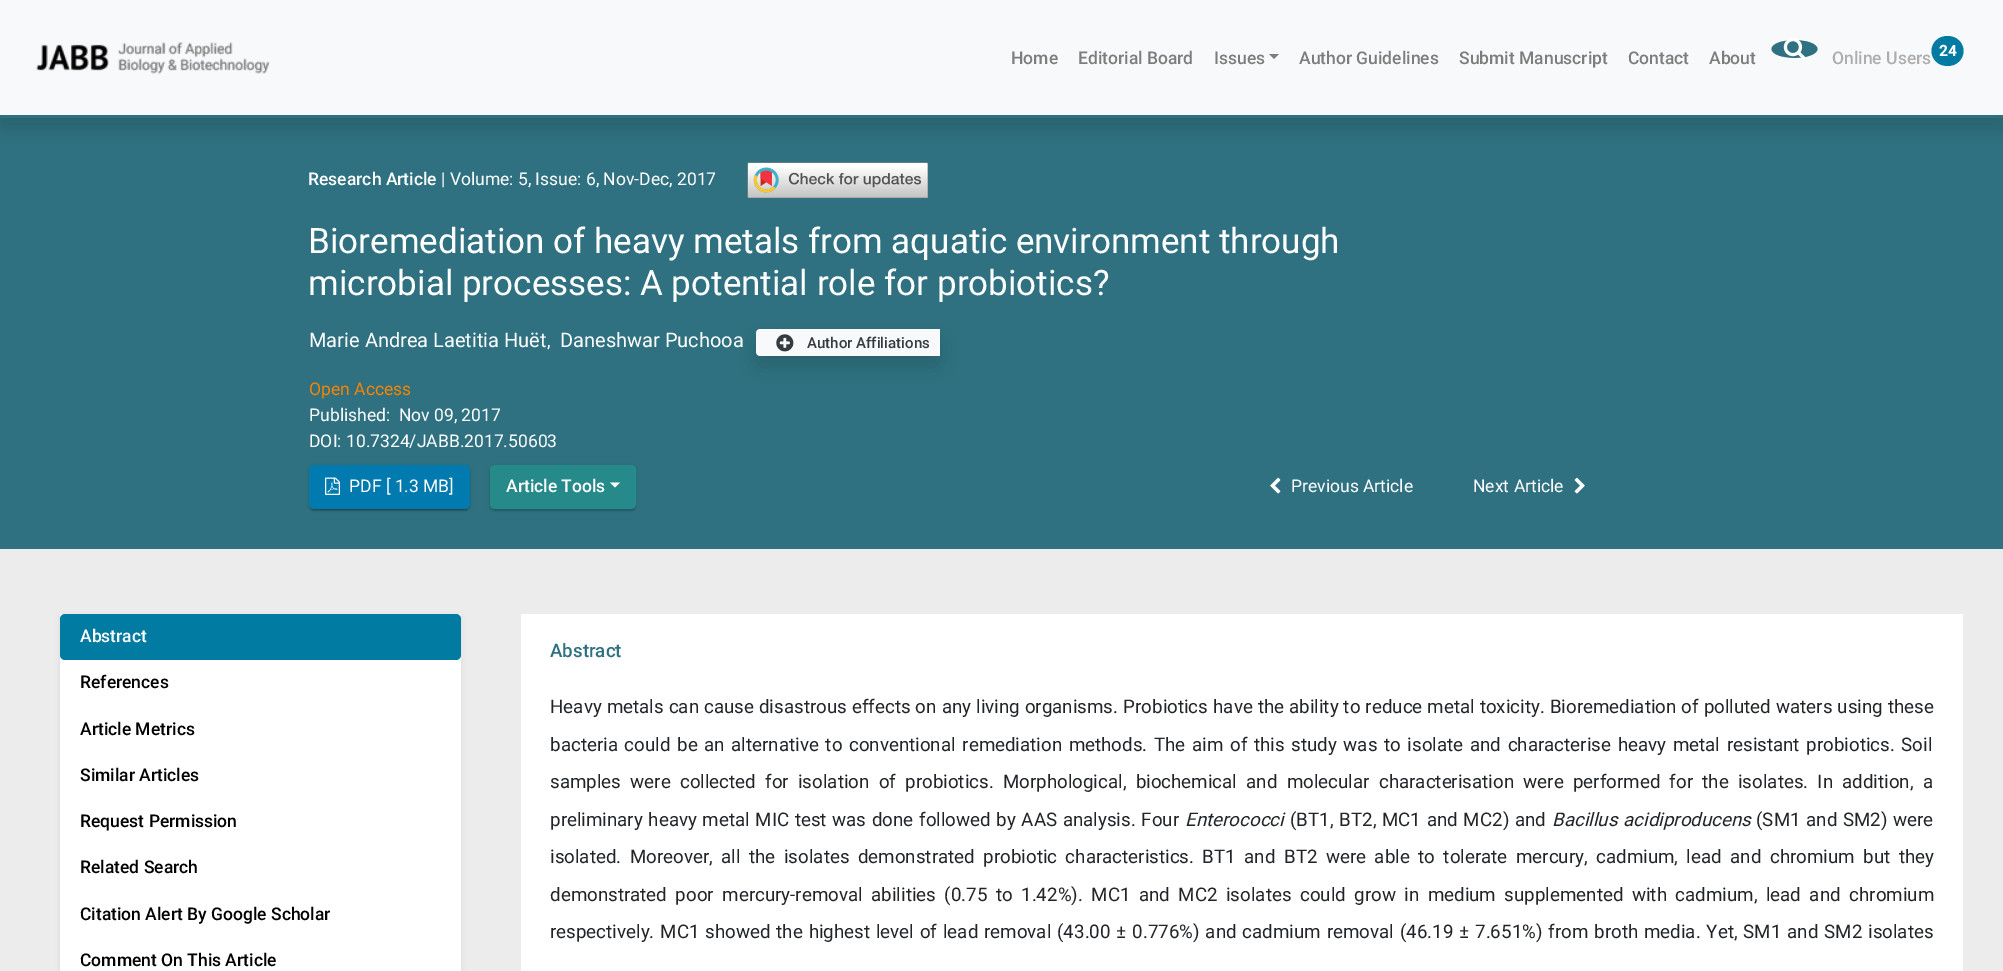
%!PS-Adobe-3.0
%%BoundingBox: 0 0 2003 971
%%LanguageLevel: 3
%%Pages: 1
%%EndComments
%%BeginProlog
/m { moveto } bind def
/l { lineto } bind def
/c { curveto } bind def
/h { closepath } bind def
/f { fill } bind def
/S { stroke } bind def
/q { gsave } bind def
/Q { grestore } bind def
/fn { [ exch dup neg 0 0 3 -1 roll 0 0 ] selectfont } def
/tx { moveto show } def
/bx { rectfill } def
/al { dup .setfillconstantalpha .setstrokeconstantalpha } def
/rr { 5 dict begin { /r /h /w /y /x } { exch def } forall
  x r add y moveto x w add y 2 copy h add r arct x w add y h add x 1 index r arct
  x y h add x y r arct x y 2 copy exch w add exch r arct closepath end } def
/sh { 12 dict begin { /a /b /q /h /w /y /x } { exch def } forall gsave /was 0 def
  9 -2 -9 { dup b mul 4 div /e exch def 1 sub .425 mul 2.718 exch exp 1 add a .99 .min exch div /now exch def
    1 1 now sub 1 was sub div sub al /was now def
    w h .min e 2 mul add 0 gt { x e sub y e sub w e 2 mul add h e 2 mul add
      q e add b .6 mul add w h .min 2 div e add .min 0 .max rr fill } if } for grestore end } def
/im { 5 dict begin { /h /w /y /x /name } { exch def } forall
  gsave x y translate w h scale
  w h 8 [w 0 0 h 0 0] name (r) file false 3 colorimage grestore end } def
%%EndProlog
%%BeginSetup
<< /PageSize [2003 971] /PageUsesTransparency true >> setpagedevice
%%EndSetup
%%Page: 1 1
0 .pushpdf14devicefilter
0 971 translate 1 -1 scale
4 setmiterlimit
0.925 setgray
0 0 2003 971 bx
0.184 0.443 0.506 setrgbcolor
0 118 2003 431 bx
0 setgray
0 10 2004 118 0 10 0.15 sh
0.973 0.976 0.98 setrgbcolor
0 0 2003 115 bx
0.184 0.443 0.506 setrgbcolor
0 115 2003 3 bx
(image0.raw) 36 42 234 32 im
/Roboto-Medium 17.5 fn
0.486 0.49 0.49 setrgbcolor
(Home) 1011 64 tx
(Editorial Board) 1078 64 tx
(Issues) 1214 64 tx
1269 54 m 1279 54 l 1274 59 l h f
(Author Guidelines) 1299 64 tx
(Submit Manuscript) 1459 64 tx
(Contact) 1628 64 tx
(About) 1709 64 tx
0.184 0.443 0.506 setrgbcolor
1794.5 40 m 1807 40 1817.5 44 1817.5 49 c 1817.5 54 1807 58 1794.5 58 c 1782 58 1771.5 54 1771.5 49 c 1771.5 44 1782 40 1794.5 40 c h f
(image1.raw) 1783 38 22 21 im
0.682 0.682 0.686 setrgbcolor
(Online Users) 1832 64 tx
0.004 0.482 0.635 setrgbcolor
1947.5 36 m 1956.5 36 1963.5 42.5 1963.5 51 c 1963.5 59.5 1956.5 66 1947.5 66 c 1938.5 66 1931.5 59.5 1931.5 51 c 1931.5 42.5 1938.5 36 1947.5 36 c h f
/Roboto-Bold 15 fn
1 setgray
(24) 1939 56 tx
/Roboto-Medium 17.5 fn
(Research Article) 308 185 tx
/Roboto-Regular 17.5 fn
(| Volume: 5, Issue: 6, Nov-Dec, 2017) 441 185 tx
(image2.raw) 747 162 181 36 im
/Roboto-Regular 35 fn
(Bioremediation of heavy metals from aquatic environment through) 308 253 tx
(microbial processes: A potential role for probiotics?) 308 295 tx
/Roboto-Regular 20 fn
(Marie Andrea Laetitia Huët) 309 347 tx
/Roboto-Regular 17.5 fn
(,) 547 347 tx
/Roboto-Regular 20 fn
(Daneshwar Puchooa) 560 347 tx
0 setgray
756 339 184 27 4 10 0.15 sh
0.973 0.976 0.98 setrgbcolor
760 329 m 940 329 l 940 356 l 760 356 l 758 356 756 354 756 352 c 756 333 l 756 331 758 329 760 329 c h f
(image3.raw) 776 334 18 18 im
/Roboto-Medium 15 fn
0.204 0.227 0.251 setrgbcolor
(Author Affiliations) 807 348 tx
/Roboto-Regular 17.5 fn
0.969 0.514 0 setrgbcolor
(Open Access) 309 395 tx
1 setgray
(Published:  Nov 09, 2017) 309 421 tx
(DOI: 10.7324/JABB.2017.50603) 309 447 tx
0 setgray
309 466 161 44 5 3 0.12 sh
309 468 161 43 5 1 0.14 sh
311 471 157 39 2.5 0.5 0.2 sh
0.004 0.478 0.686 setrgbcolor
309 465 161 44 5 rr f
(image4.raw) 325 477 15 18 im
1 setgray
(PDF [ 1.3 MB]) 349 492 tx
0 setgray
490 466 146 44 5 3 0.12 sh
490 468 146 43 5 1 0.14 sh
493 471 141 39 2.5 0.5 0.2 sh
0.153 0.541 0.541 setrgbcolor
490.5 465.5 145 43 4.5 rr q f Q
S
/Roboto-Medium 17.5 fn
1 setgray
(Article Tools) 506 492 tx
610 482.5 m 620 482.5 l 615 487.5 l h f
(image5.raw) 1270 477 11 17 im
/Roboto-Regular 17.5 fn
(Previous Article) 1291 492 tx
(Next Article) 1473 492 tx
(image6.raw) 1574 477 11 17 im
0 setgray
60 616 401 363 0 2.5 0.07 sh
1 setgray
60 614 401 357 bx
0.004 0.482 0.635 setrgbcolor
60 614 401 46 5 rr f
/Roboto-Medium 17.5 fn
1 setgray
(Abstract) 80 642 tx
0 setgray
(References) 80 688 tx
(Article Metrics) 80 735 tx
(Similar Articles) 80 781 tx
(Request Permission) 80 827 tx
(Related Search) 80 873 tx
(Citation Alert By Google Scholar) 80 920 tx
(Comment On This Article) 80 966 tx
1 setgray
521 614 1442 357 bx
/Roboto-Medium 18.75 fn
0.184 0.443 0.506 setrgbcolor
(Abstract) 550 657 tx
/Roboto-Regular 18.75 fn
0.129 0.145 0.161 setrgbcolor
550 713 m 0.4 0 32 (Heavy metals can cause disastrous effects on any living organisms. Probiotics have the ability to reduce metal toxicity. Bioremediation of polluted waters using these) widthshow
550 751 m 2 0 32 (bacteria could be an alternative to conventional remediation methods. The aim of this study was to isolate and characterise heavy metal resistant probiotics. Soil) widthshow
550 788 m 4.6 0 32 (samples were collected for isolation of probiotics. Morphological, biochemical and molecular characterisation were performed for the isolates. In addition, a) widthshow
550 826 m 1 0 32 (preliminary heavy metal MIC test was done followed by AAS analysis. Four) widthshow
/Roboto-Italic 18.75 fn
(Enterococci) 1185 826 tx
/Roboto-Regular 18.75 fn
1290 826 m 1 0 32 (\(BT1, BT2, MC1 and MC2\) and) widthshow
/Roboto-Italic 18.75 fn
1552 826 m 1 0 32 (Bacillus acidiproducens) widthshow
/Roboto-Regular 18.75 fn
1756 826 m 1 0 32 (\(SM1 and SM2\) were) widthshow
550 863 m 3.8 0 32 (isolated. Moreover, all the isolates demonstrated probiotic characteristics. BT1 and BT2 were able to tolerate mercury, cadmium, lead and chromium but they) widthshow
550 901 m 3.8 0 32 (demonstrated poor mercury-removal abilities \(0.75 to 1.42%\). MC1 and MC2 isolates could grow in medium supplemented with cadmium, lead and chromium) widthshow
550 938 m 1.2 0 32 (respectively. MC1 showed the highest level of lead removal \(43.00 ± 0.776%\) and cadmium removal \(46.19 ± 7.651%\) from broth media. Yet, SM1 and SM2 isolates) widthshow
.poppdf14devicefilter showpage
%%EOF
